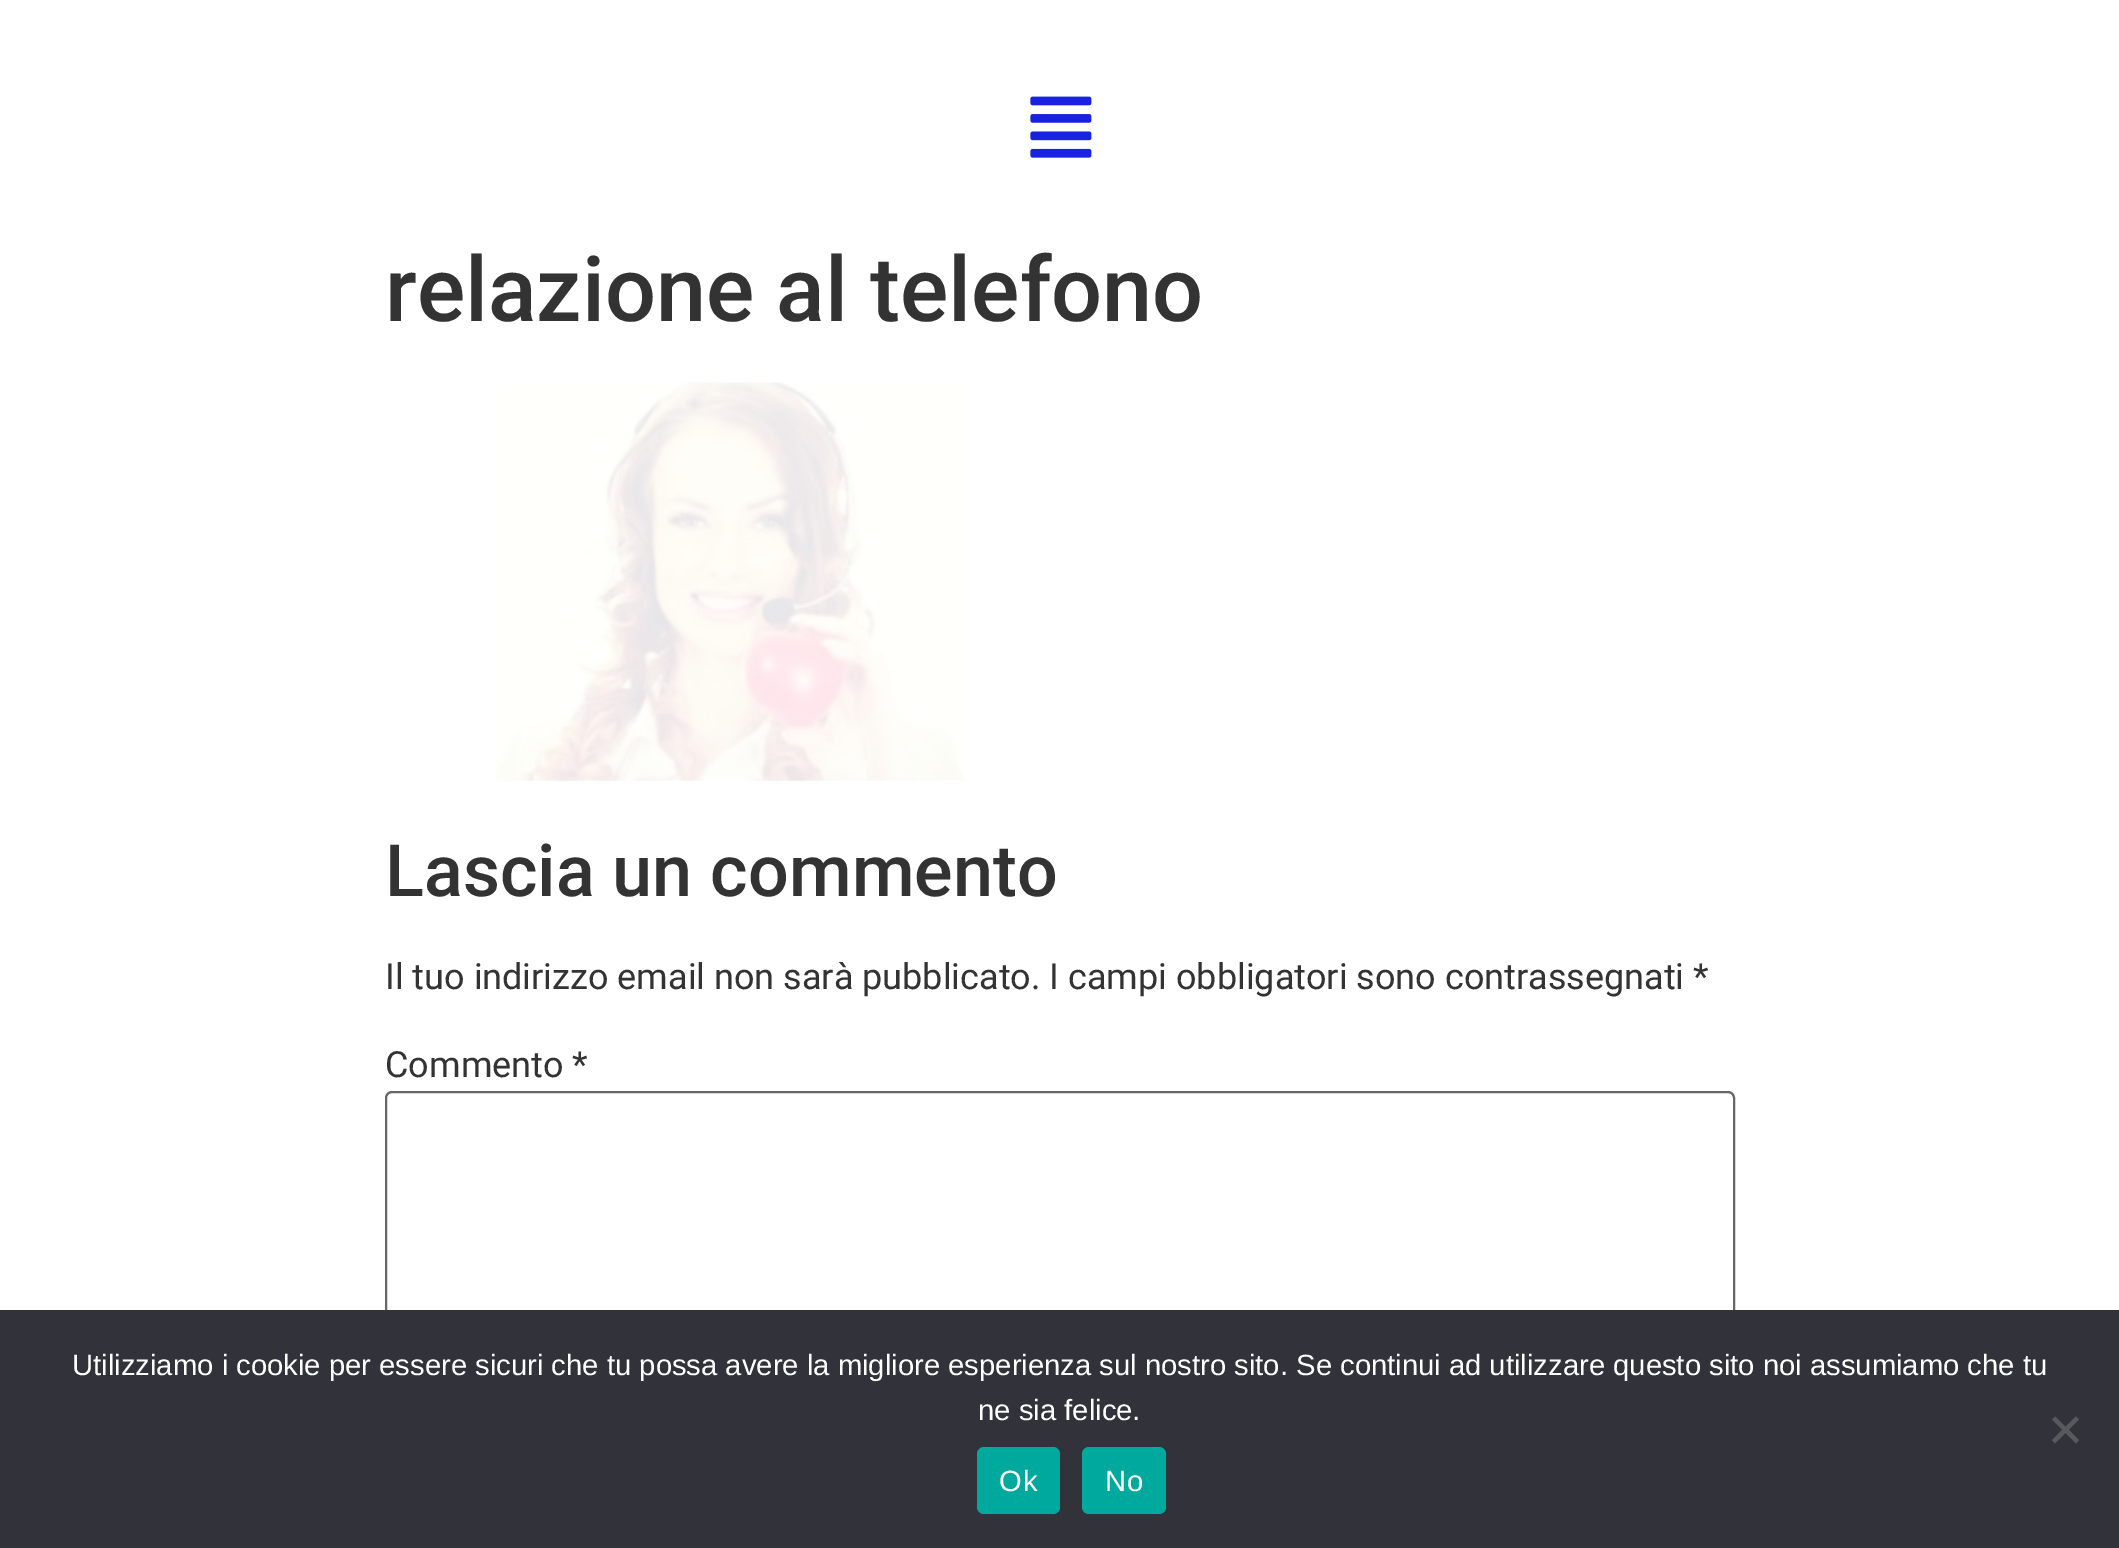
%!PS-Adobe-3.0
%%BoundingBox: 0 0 2119 1548
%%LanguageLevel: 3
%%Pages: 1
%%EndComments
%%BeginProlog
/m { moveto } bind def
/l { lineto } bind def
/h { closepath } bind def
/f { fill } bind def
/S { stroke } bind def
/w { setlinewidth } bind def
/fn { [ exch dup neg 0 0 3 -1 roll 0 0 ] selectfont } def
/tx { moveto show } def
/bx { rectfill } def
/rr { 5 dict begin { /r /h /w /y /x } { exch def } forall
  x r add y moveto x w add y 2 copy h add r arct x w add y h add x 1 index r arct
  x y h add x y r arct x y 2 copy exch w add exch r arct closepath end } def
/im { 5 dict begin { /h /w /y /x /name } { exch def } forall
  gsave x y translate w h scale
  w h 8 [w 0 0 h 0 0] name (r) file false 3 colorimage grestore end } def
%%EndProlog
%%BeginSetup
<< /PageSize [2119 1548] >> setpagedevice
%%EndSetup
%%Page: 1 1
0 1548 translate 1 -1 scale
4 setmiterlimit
1 setgray
0 0 2119 1548 bx
(image0.raw) 1030 96 62 62 im
/Roboto-Medium 90 fn
0.2 setgray
(relazione al telefono) 385 321 tx
(image1.raw) 495 382 471 399 im
/Roboto-Medium 72 fn
(Lascia un commento) 385 896 tx
/Roboto-Regular 36 fn
(Il tuo indirizzo email non sarà pubblicato. I campi obbligatori sono contrassegnati *) 385 989 tx
(Commento *) 385 1077 tx
0.4 setgray
2 w
386 1092 1348 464 6 rr S
0.196 0.196 0.227 setrgbcolor
0 1310 2119 238 bx
/LiberationSans-Regular 29.25 fn
1 setgray
(Utilizziamo i cookie per essere sicuri che tu possa avere la migliore esperienza sul nostro sito. Se continui ad utilizzare questo sito noi assumiamo che tu) 72 1375 tx
(ne sia felice.) 978 1420 tx
0.349 0.349 0.365 setrgbcolor
2076 1416.5 m 2079 1419.5 l 2055 1443.5 l 2052 1440 l h f
2052 1419.5 m 2055 1416.5 l 2079 1440 l 2076 1443.5 l h f
0 0.663 0.616 setrgbcolor
977 1447 83 67 7 rr f
1 setgray
999 1491 m 1 0 (Ok) ashow
0 0.663 0.616 setrgbcolor
1082 1447 84 67 7 rr f
1 setgray
1105 1491 m 1 0 (No) ashow
showpage
%%EOF
